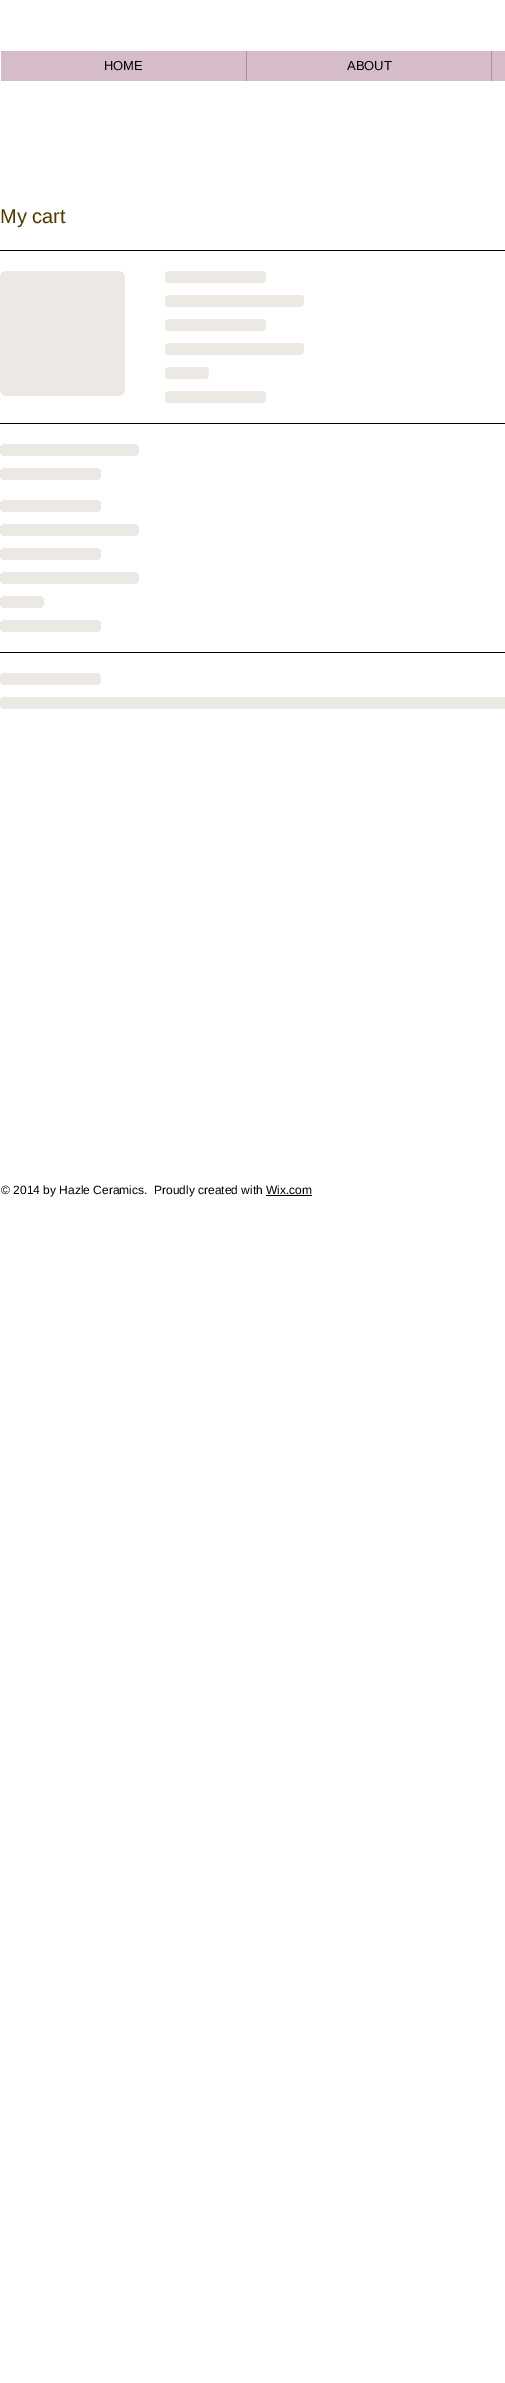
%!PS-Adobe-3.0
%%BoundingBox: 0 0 505 2383
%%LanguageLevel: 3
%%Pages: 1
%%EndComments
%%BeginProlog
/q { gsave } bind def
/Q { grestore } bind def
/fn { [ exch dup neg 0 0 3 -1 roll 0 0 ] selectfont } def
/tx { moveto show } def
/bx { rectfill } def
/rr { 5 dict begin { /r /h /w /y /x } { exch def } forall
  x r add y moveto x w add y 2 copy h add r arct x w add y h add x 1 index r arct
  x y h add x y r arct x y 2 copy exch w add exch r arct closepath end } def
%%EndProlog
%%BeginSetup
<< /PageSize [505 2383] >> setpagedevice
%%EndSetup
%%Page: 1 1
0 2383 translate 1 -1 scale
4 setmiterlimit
1 setgray
0 0 505 2383 bx
0.839 0.733 0.784 setrgbcolor
1 51 504 30 bx
/LiberationSans-Regular 13 fn
0 setgray
(HOME) 104 70 tx
0.678 0.565 0.62 setrgbcolor
246 51 1 30 bx
0 setgray
(ABOUT) 347 70 tx
0.678 0.565 0.62 setrgbcolor
491 51 1 30 bx
0 setgray
0 250 505 1 bx
/LiberationSans-Regular 20 fn
0.31 0.224 0 setrgbcolor
(My cart) 0 223 tx
q 0 271 125 125 8 rr clip newpath
<< /ShadingType 2 /ColorSpace /DeviceRGB /Coords [0 334 500 334] /Extend [true true] /Function << /FunctionType 3 /Domain [0 1] /Functions [<< /FunctionType 2 /Domain [0 1] /C0 [0.925 0.914 0.894] /C1 [0.925 0.914 0.894] /N 1 >> << /FunctionType 2 /Domain [0 1] /C0 [0.925 0.914 0.894] /C1 [0.859 0.839 0.792] /N 1 >> << /FunctionType 2 /Domain [0 1] /C0 [0.859 0.839 0.792] /C1 [0.925 0.914 0.894] /N 1 >> << /FunctionType 2 /Domain [0 1] /C0 [0.925 0.914 0.894] /C1 [0.925 0.914 0.894] /N 1 >>] /Bounds [0.25 0.37 0.63] /Encode [0 1 0 1 0 1 0 1] >> >> shfill Q
q 165 271 101 12 6 rr clip newpath
<< /ShadingType 2 /ColorSpace /DeviceRGB /Coords [165 277 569 277] /Extend [true true] /Function << /FunctionType 3 /Domain [0 1] /Functions [<< /FunctionType 2 /Domain [0 1] /C0 [0.925 0.914 0.894] /C1 [0.925 0.914 0.894] /N 1 >> << /FunctionType 2 /Domain [0 1] /C0 [0.925 0.914 0.894] /C1 [0.859 0.839 0.792] /N 1 >> << /FunctionType 2 /Domain [0 1] /C0 [0.859 0.839 0.792] /C1 [0.925 0.914 0.894] /N 1 >> << /FunctionType 2 /Domain [0 1] /C0 [0.925 0.914 0.894] /C1 [0.925 0.914 0.894] /N 1 >>] /Bounds [0.25 0.37 0.63] /Encode [0 1 0 1 0 1 0 1] >> >> shfill Q
q 165 295 139 12 6 rr clip newpath
<< /ShadingType 2 /ColorSpace /DeviceRGB /Coords [165 301 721 301] /Extend [true true] /Function << /FunctionType 3 /Domain [0 1] /Functions [<< /FunctionType 2 /Domain [0 1] /C0 [0.925 0.914 0.894] /C1 [0.925 0.914 0.894] /N 1 >> << /FunctionType 2 /Domain [0 1] /C0 [0.925 0.914 0.894] /C1 [0.859 0.839 0.792] /N 1 >> << /FunctionType 2 /Domain [0 1] /C0 [0.859 0.839 0.792] /C1 [0.925 0.914 0.894] /N 1 >> << /FunctionType 2 /Domain [0 1] /C0 [0.925 0.914 0.894] /C1 [0.925 0.914 0.894] /N 1 >>] /Bounds [0.25 0.37 0.63] /Encode [0 1 0 1 0 1 0 1] >> >> shfill Q
q 165 319 101 12 6 rr clip newpath
<< /ShadingType 2 /ColorSpace /DeviceRGB /Coords [165 325 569 325] /Extend [true true] /Function << /FunctionType 3 /Domain [0 1] /Functions [<< /FunctionType 2 /Domain [0 1] /C0 [0.925 0.914 0.894] /C1 [0.925 0.914 0.894] /N 1 >> << /FunctionType 2 /Domain [0 1] /C0 [0.925 0.914 0.894] /C1 [0.859 0.839 0.792] /N 1 >> << /FunctionType 2 /Domain [0 1] /C0 [0.859 0.839 0.792] /C1 [0.925 0.914 0.894] /N 1 >> << /FunctionType 2 /Domain [0 1] /C0 [0.925 0.914 0.894] /C1 [0.925 0.914 0.894] /N 1 >>] /Bounds [0.25 0.37 0.63] /Encode [0 1 0 1 0 1 0 1] >> >> shfill Q
q 165 343 139 12 6 rr clip newpath
<< /ShadingType 2 /ColorSpace /DeviceRGB /Coords [165 349 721 349] /Extend [true true] /Function << /FunctionType 3 /Domain [0 1] /Functions [<< /FunctionType 2 /Domain [0 1] /C0 [0.925 0.914 0.894] /C1 [0.925 0.914 0.894] /N 1 >> << /FunctionType 2 /Domain [0 1] /C0 [0.925 0.914 0.894] /C1 [0.859 0.839 0.792] /N 1 >> << /FunctionType 2 /Domain [0 1] /C0 [0.859 0.839 0.792] /C1 [0.925 0.914 0.894] /N 1 >> << /FunctionType 2 /Domain [0 1] /C0 [0.925 0.914 0.894] /C1 [0.925 0.914 0.894] /N 1 >>] /Bounds [0.25 0.37 0.63] /Encode [0 1 0 1 0 1 0 1] >> >> shfill Q
q 165 367 44 12 6 rr clip newpath
<< /ShadingType 2 /ColorSpace /DeviceRGB /Coords [165 373 341 373] /Extend [true true] /Function << /FunctionType 3 /Domain [0 1] /Functions [<< /FunctionType 2 /Domain [0 1] /C0 [0.925 0.914 0.894] /C1 [0.925 0.914 0.894] /N 1 >> << /FunctionType 2 /Domain [0 1] /C0 [0.925 0.914 0.894] /C1 [0.859 0.839 0.792] /N 1 >> << /FunctionType 2 /Domain [0 1] /C0 [0.859 0.839 0.792] /C1 [0.925 0.914 0.894] /N 1 >> << /FunctionType 2 /Domain [0 1] /C0 [0.925 0.914 0.894] /C1 [0.925 0.914 0.894] /N 1 >>] /Bounds [0.25 0.37 0.63] /Encode [0 1 0 1 0 1 0 1] >> >> shfill Q
q 165 391 101 12 6 rr clip newpath
<< /ShadingType 2 /ColorSpace /DeviceRGB /Coords [165 397 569 397] /Extend [true true] /Function << /FunctionType 3 /Domain [0 1] /Functions [<< /FunctionType 2 /Domain [0 1] /C0 [0.925 0.914 0.894] /C1 [0.925 0.914 0.894] /N 1 >> << /FunctionType 2 /Domain [0 1] /C0 [0.925 0.914 0.894] /C1 [0.859 0.839 0.792] /N 1 >> << /FunctionType 2 /Domain [0 1] /C0 [0.859 0.839 0.792] /C1 [0.925 0.914 0.894] /N 1 >> << /FunctionType 2 /Domain [0 1] /C0 [0.925 0.914 0.894] /C1 [0.925 0.914 0.894] /N 1 >>] /Bounds [0.25 0.37 0.63] /Encode [0 1 0 1 0 1 0 1] >> >> shfill Q
0 setgray
0 423 505 1 bx
q 0 444 139 12 6 rr clip newpath
<< /ShadingType 2 /ColorSpace /DeviceRGB /Coords [0 450 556 450] /Extend [true true] /Function << /FunctionType 3 /Domain [0 1] /Functions [<< /FunctionType 2 /Domain [0 1] /C0 [0.925 0.914 0.894] /C1 [0.925 0.914 0.894] /N 1 >> << /FunctionType 2 /Domain [0 1] /C0 [0.925 0.914 0.894] /C1 [0.859 0.839 0.792] /N 1 >> << /FunctionType 2 /Domain [0 1] /C0 [0.859 0.839 0.792] /C1 [0.925 0.914 0.894] /N 1 >> << /FunctionType 2 /Domain [0 1] /C0 [0.925 0.914 0.894] /C1 [0.925 0.914 0.894] /N 1 >>] /Bounds [0.25 0.37 0.63] /Encode [0 1 0 1 0 1 0 1] >> >> shfill Q
q 0 468 101 12 6 rr clip newpath
<< /ShadingType 2 /ColorSpace /DeviceRGB /Coords [0 474 404 474] /Extend [true true] /Function << /FunctionType 3 /Domain [0 1] /Functions [<< /FunctionType 2 /Domain [0 1] /C0 [0.925 0.914 0.894] /C1 [0.925 0.914 0.894] /N 1 >> << /FunctionType 2 /Domain [0 1] /C0 [0.925 0.914 0.894] /C1 [0.859 0.839 0.792] /N 1 >> << /FunctionType 2 /Domain [0 1] /C0 [0.859 0.839 0.792] /C1 [0.925 0.914 0.894] /N 1 >> << /FunctionType 2 /Domain [0 1] /C0 [0.925 0.914 0.894] /C1 [0.925 0.914 0.894] /N 1 >>] /Bounds [0.25 0.37 0.63] /Encode [0 1 0 1 0 1 0 1] >> >> shfill Q
q 0 500 101 12 6 rr clip newpath
<< /ShadingType 2 /ColorSpace /DeviceRGB /Coords [0 506 404 506] /Extend [true true] /Function << /FunctionType 3 /Domain [0 1] /Functions [<< /FunctionType 2 /Domain [0 1] /C0 [0.925 0.914 0.894] /C1 [0.925 0.914 0.894] /N 1 >> << /FunctionType 2 /Domain [0 1] /C0 [0.925 0.914 0.894] /C1 [0.859 0.839 0.792] /N 1 >> << /FunctionType 2 /Domain [0 1] /C0 [0.859 0.839 0.792] /C1 [0.925 0.914 0.894] /N 1 >> << /FunctionType 2 /Domain [0 1] /C0 [0.925 0.914 0.894] /C1 [0.925 0.914 0.894] /N 1 >>] /Bounds [0.25 0.37 0.63] /Encode [0 1 0 1 0 1 0 1] >> >> shfill Q
q 0 524 139 12 6 rr clip newpath
<< /ShadingType 2 /ColorSpace /DeviceRGB /Coords [0 530 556 530] /Extend [true true] /Function << /FunctionType 3 /Domain [0 1] /Functions [<< /FunctionType 2 /Domain [0 1] /C0 [0.925 0.914 0.894] /C1 [0.925 0.914 0.894] /N 1 >> << /FunctionType 2 /Domain [0 1] /C0 [0.925 0.914 0.894] /C1 [0.859 0.839 0.792] /N 1 >> << /FunctionType 2 /Domain [0 1] /C0 [0.859 0.839 0.792] /C1 [0.925 0.914 0.894] /N 1 >> << /FunctionType 2 /Domain [0 1] /C0 [0.925 0.914 0.894] /C1 [0.925 0.914 0.894] /N 1 >>] /Bounds [0.25 0.37 0.63] /Encode [0 1 0 1 0 1 0 1] >> >> shfill Q
q 0 548 101 12 6 rr clip newpath
<< /ShadingType 2 /ColorSpace /DeviceRGB /Coords [0 554 404 554] /Extend [true true] /Function << /FunctionType 3 /Domain [0 1] /Functions [<< /FunctionType 2 /Domain [0 1] /C0 [0.925 0.914 0.894] /C1 [0.925 0.914 0.894] /N 1 >> << /FunctionType 2 /Domain [0 1] /C0 [0.925 0.914 0.894] /C1 [0.859 0.839 0.792] /N 1 >> << /FunctionType 2 /Domain [0 1] /C0 [0.859 0.839 0.792] /C1 [0.925 0.914 0.894] /N 1 >> << /FunctionType 2 /Domain [0 1] /C0 [0.925 0.914 0.894] /C1 [0.925 0.914 0.894] /N 1 >>] /Bounds [0.25 0.37 0.63] /Encode [0 1 0 1 0 1 0 1] >> >> shfill Q
q 0 572 139 12 6 rr clip newpath
<< /ShadingType 2 /ColorSpace /DeviceRGB /Coords [0 578 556 578] /Extend [true true] /Function << /FunctionType 3 /Domain [0 1] /Functions [<< /FunctionType 2 /Domain [0 1] /C0 [0.925 0.914 0.894] /C1 [0.925 0.914 0.894] /N 1 >> << /FunctionType 2 /Domain [0 1] /C0 [0.925 0.914 0.894] /C1 [0.859 0.839 0.792] /N 1 >> << /FunctionType 2 /Domain [0 1] /C0 [0.859 0.839 0.792] /C1 [0.925 0.914 0.894] /N 1 >> << /FunctionType 2 /Domain [0 1] /C0 [0.925 0.914 0.894] /C1 [0.925 0.914 0.894] /N 1 >>] /Bounds [0.25 0.37 0.63] /Encode [0 1 0 1 0 1 0 1] >> >> shfill Q
q 0 596 44 12 6 rr clip newpath
<< /ShadingType 2 /ColorSpace /DeviceRGB /Coords [0 602 176 602] /Extend [true true] /Function << /FunctionType 3 /Domain [0 1] /Functions [<< /FunctionType 2 /Domain [0 1] /C0 [0.925 0.914 0.894] /C1 [0.925 0.914 0.894] /N 1 >> << /FunctionType 2 /Domain [0 1] /C0 [0.925 0.914 0.894] /C1 [0.859 0.839 0.792] /N 1 >> << /FunctionType 2 /Domain [0 1] /C0 [0.859 0.839 0.792] /C1 [0.925 0.914 0.894] /N 1 >> << /FunctionType 2 /Domain [0 1] /C0 [0.925 0.914 0.894] /C1 [0.925 0.914 0.894] /N 1 >>] /Bounds [0.25 0.37 0.63] /Encode [0 1 0 1 0 1 0 1] >> >> shfill Q
q 0 620 101 12 6 rr clip newpath
<< /ShadingType 2 /ColorSpace /DeviceRGB /Coords [0 626 404 626] /Extend [true true] /Function << /FunctionType 3 /Domain [0 1] /Functions [<< /FunctionType 2 /Domain [0 1] /C0 [0.925 0.914 0.894] /C1 [0.925 0.914 0.894] /N 1 >> << /FunctionType 2 /Domain [0 1] /C0 [0.925 0.914 0.894] /C1 [0.859 0.839 0.792] /N 1 >> << /FunctionType 2 /Domain [0 1] /C0 [0.859 0.839 0.792] /C1 [0.925 0.914 0.894] /N 1 >> << /FunctionType 2 /Domain [0 1] /C0 [0.925 0.914 0.894] /C1 [0.925 0.914 0.894] /N 1 >>] /Bounds [0.25 0.37 0.63] /Encode [0 1 0 1 0 1 0 1] >> >> shfill Q
0 652 505 1 bx
q 0 673 101 12 6 rr clip newpath
<< /ShadingType 2 /ColorSpace /DeviceRGB /Coords [0 679 404 679] /Extend [true true] /Function << /FunctionType 3 /Domain [0 1] /Functions [<< /FunctionType 2 /Domain [0 1] /C0 [0.925 0.914 0.894] /C1 [0.925 0.914 0.894] /N 1 >> << /FunctionType 2 /Domain [0 1] /C0 [0.925 0.914 0.894] /C1 [0.859 0.839 0.792] /N 1 >> << /FunctionType 2 /Domain [0 1] /C0 [0.859 0.839 0.792] /C1 [0.925 0.914 0.894] /N 1 >> << /FunctionType 2 /Domain [0 1] /C0 [0.925 0.914 0.894] /C1 [0.925 0.914 0.894] /N 1 >>] /Bounds [0.25 0.37 0.63] /Encode [0 1 0 1 0 1 0 1] >> >> shfill Q
q 0 697 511 12 6 rr clip newpath
<< /ShadingType 2 /ColorSpace /DeviceRGB /Coords [0 703 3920 703] /Extend [true true] /Function << /FunctionType 3 /Domain [0 1] /Functions [<< /FunctionType 2 /Domain [0 1] /C0 [0.925 0.914 0.894] /C1 [0.925 0.914 0.894] /N 1 >> << /FunctionType 2 /Domain [0 1] /C0 [0.925 0.914 0.894] /C1 [0.859 0.839 0.792] /N 1 >> << /FunctionType 2 /Domain [0 1] /C0 [0.859 0.839 0.792] /C1 [0.925 0.914 0.894] /N 1 >> << /FunctionType 2 /Domain [0 1] /C0 [0.925 0.914 0.894] /C1 [0.925 0.914 0.894] /N 1 >>] /Bounds [0.25 0.37 0.63] /Encode [0 1 0 1 0 1 0 1] >> >> shfill Q
/LiberationSans-Regular 12 fn
(© 2014 by Hazle Ceramics.  Proudly created with Wix.com) 1 1194 tx
266 1195 46 1 bx
showpage
%%EOF
